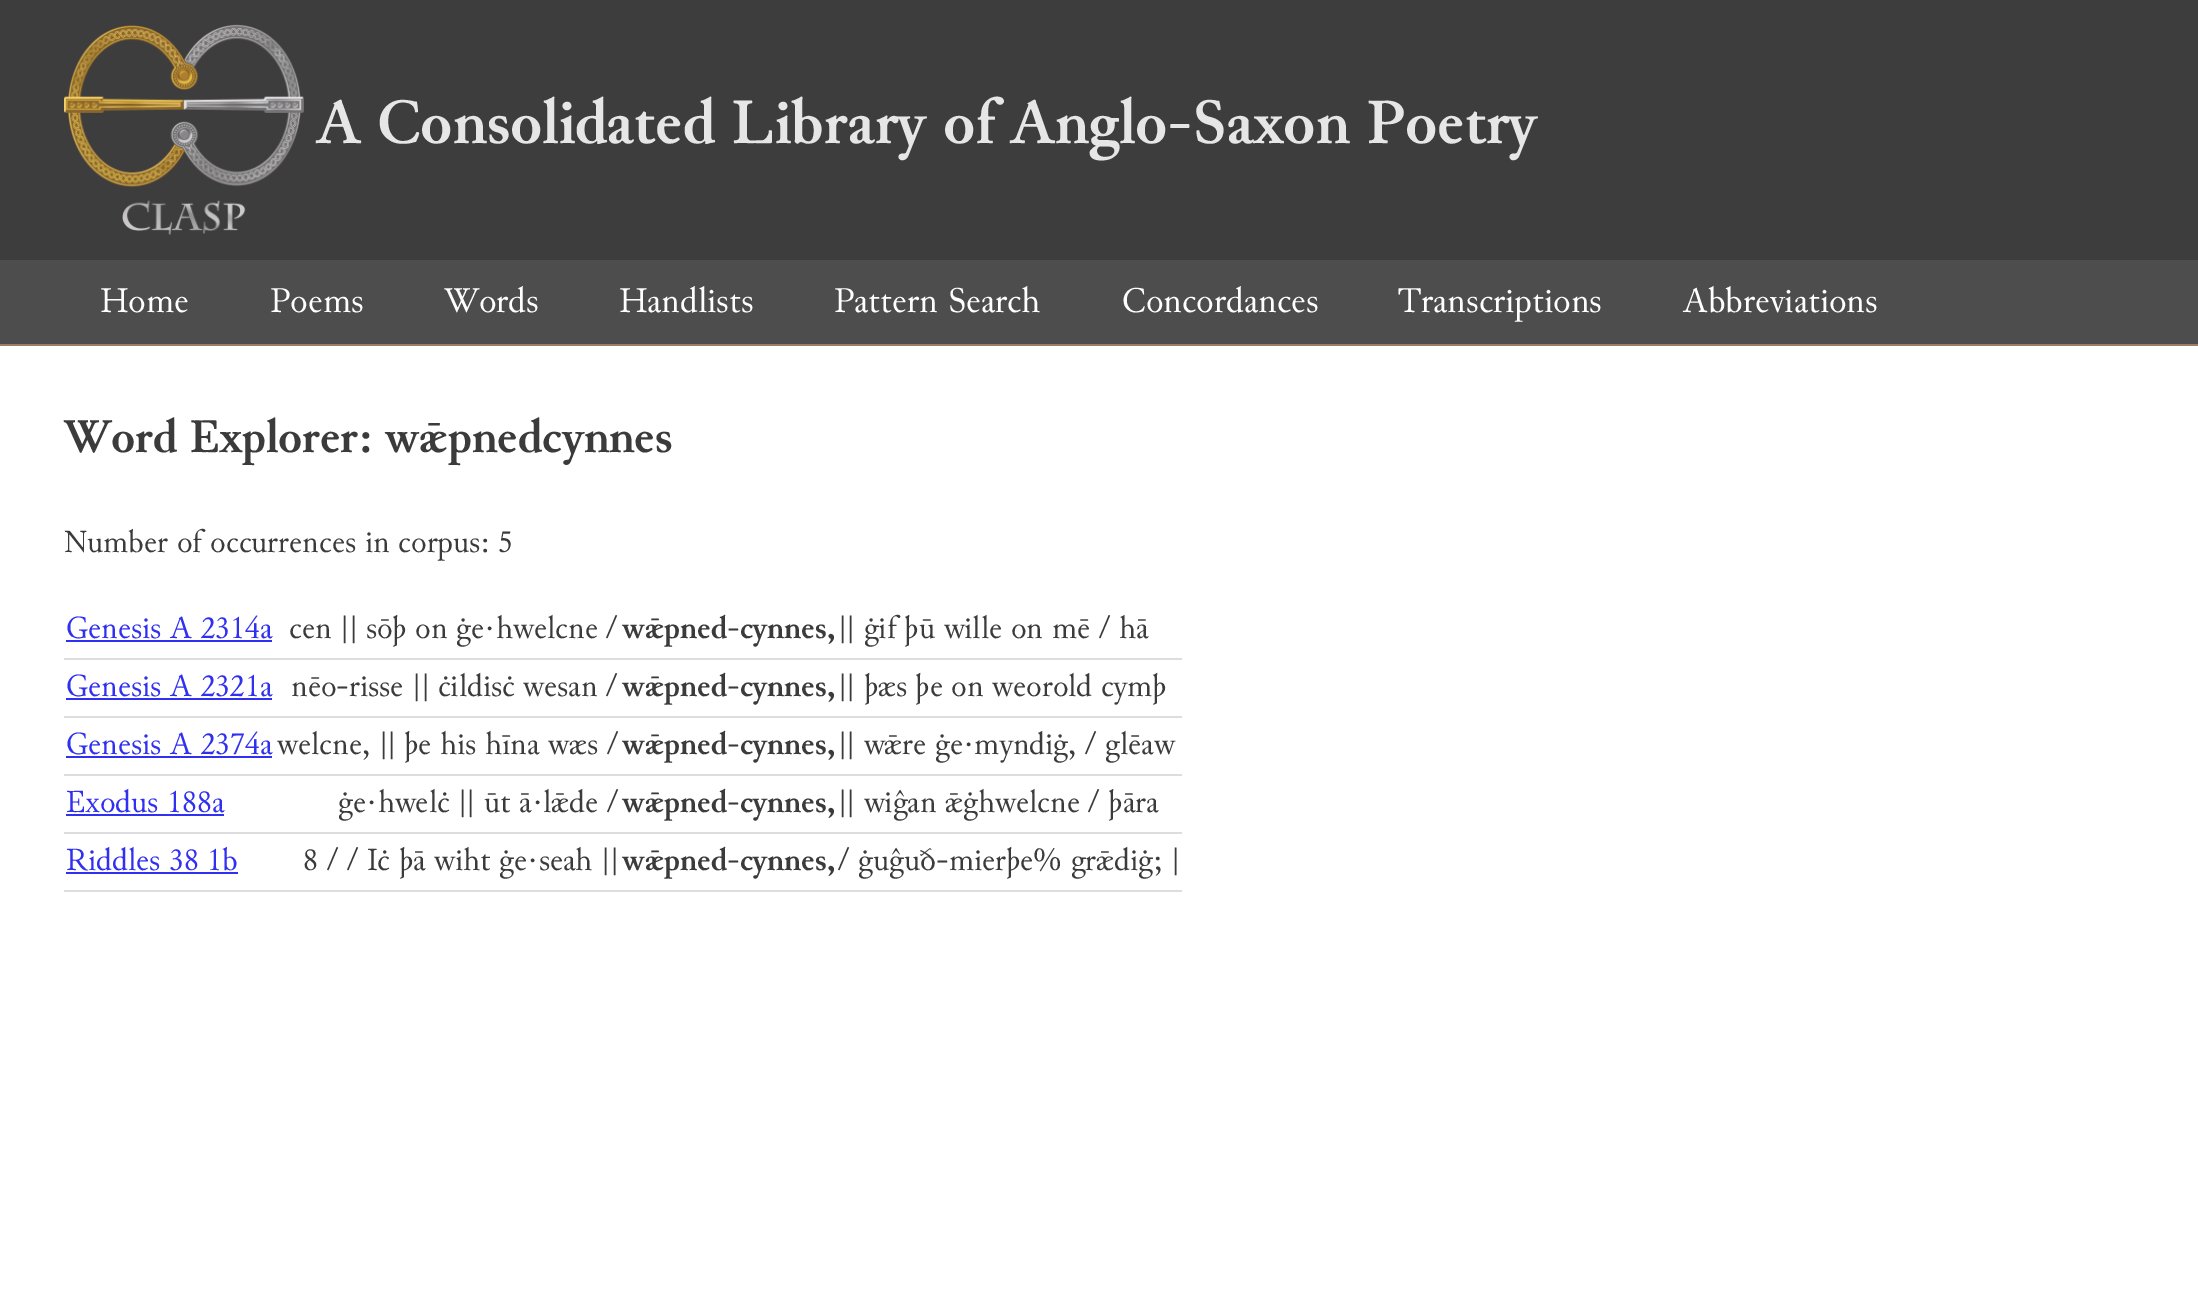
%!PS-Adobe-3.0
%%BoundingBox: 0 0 2198 1307
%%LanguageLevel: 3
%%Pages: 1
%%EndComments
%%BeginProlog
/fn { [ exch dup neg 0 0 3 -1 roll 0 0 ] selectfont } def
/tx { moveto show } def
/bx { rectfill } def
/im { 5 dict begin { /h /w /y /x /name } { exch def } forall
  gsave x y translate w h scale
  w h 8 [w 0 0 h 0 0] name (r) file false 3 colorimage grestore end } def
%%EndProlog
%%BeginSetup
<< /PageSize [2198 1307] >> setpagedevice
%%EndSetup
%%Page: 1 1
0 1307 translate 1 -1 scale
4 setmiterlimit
1 setgray
0 0 2198 1307 bx
0.239 setgray
0 0 2198 260 bx
(image0.raw) 64 24 240 211 im
/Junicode-Bold 64 fn
0.902 setgray
(A Consolidated Library of Anglo-Saxon Poetry) 317 143 tx
0.302 setgray
0 260 2198 84 bx
0.612 0.494 0.408 setrgbcolor
0 344 2198 2 bx
/Junicode-Regular 36 fn
1 setgray
(Home) 100 312 tx
(Poems) 270 312 tx
(Words) 444 312 tx
(Handlists) 619 312 tx
(Pattern Search) 834 312 tx
(Concordances) 1122 312 tx
(Transcriptions) 1398 312 tx
(Abbreviations) 1683 312 tx
/Junicode-Bold 48 fn
0.231 setgray
(Word Explorer: wǣpnedcynnes) 64 452 tx
/Junicode-Regular 32 fn
(Number of occurrences in corpus: 5) 64 552 tx
0.188 0.188 0.941 setrgbcolor
(Genesis A 2314a) 66 638 tx
66 640 206 2 bx
0.231 setgray
(cen || sōþ on ġe·hwelcne /) 289 638 tx
/Junicode-Bold 32 fn
(wǣpned-cynnes,) 622 638 tx
0.867 setgray
64 658 1118 2 bx
/Junicode-Regular 32 fn
0.231 setgray
(|| ġif þū wille on mē / hā) 838 638 tx
0.188 0.188 0.941 setrgbcolor
(Genesis A 2321a) 66 696 tx
66 698 206 2 bx
0.231 setgray
(nēo-risse || ċildisċ wesan /) 291 696 tx
/Junicode-Bold 32 fn
(wǣpned-cynnes,) 622 696 tx
0.867 setgray
64 716 1118 2 bx
/Junicode-Regular 32 fn
0.231 setgray
(|| þæs þe on weorold cymþ) 838 696 tx
0.188 0.188 0.941 setrgbcolor
(Genesis A 2374a) 66 754 tx
66 756 206 2 bx
0.231 setgray
(welcne, || þe his hīna wæs /) 277 754 tx
/Junicode-Bold 32 fn
(wǣpned-cynnes,) 622 754 tx
0.867 setgray
64 774 1118 2 bx
/Junicode-Regular 32 fn
0.231 setgray
(|| wǣre ġe·myndiġ, / glēaw) 838 754 tx
0.188 0.188 0.941 setrgbcolor
(Exodus 188a) 66 812 tx
66 814 158 2 bx
0.231 setgray
(ġe·hwelċ || ūt ā·lǣde /) 338 812 tx
/Junicode-Bold 32 fn
(wǣpned-cynnes,) 622 812 tx
0.867 setgray
64 832 1118 2 bx
/Junicode-Regular 32 fn
0.231 setgray
(|| wiĝan ǣġhwelcne / þāra) 838 812 tx
0.188 0.188 0.941 setrgbcolor
(Riddles 38 1b) 66 870 tx
66 872 172 2 bx
0.231 setgray
(8 / / Iċ þā wiht ġe·seah ||) 303 870 tx
/Junicode-Bold 32 fn
(wǣpned-cynnes,) 622 870 tx
0.867 setgray
64 890 1118 2 bx
/Junicode-Regular 32 fn
0.231 setgray
(/ ġuĝuð-mierþe% grǣdiġ; |) 838 870 tx
showpage
%%EOF
